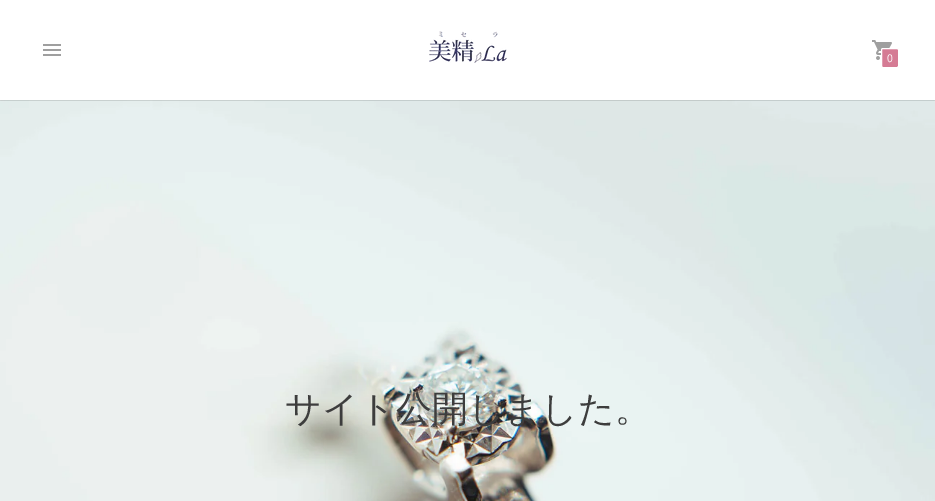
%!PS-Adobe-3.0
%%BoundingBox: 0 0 935 501
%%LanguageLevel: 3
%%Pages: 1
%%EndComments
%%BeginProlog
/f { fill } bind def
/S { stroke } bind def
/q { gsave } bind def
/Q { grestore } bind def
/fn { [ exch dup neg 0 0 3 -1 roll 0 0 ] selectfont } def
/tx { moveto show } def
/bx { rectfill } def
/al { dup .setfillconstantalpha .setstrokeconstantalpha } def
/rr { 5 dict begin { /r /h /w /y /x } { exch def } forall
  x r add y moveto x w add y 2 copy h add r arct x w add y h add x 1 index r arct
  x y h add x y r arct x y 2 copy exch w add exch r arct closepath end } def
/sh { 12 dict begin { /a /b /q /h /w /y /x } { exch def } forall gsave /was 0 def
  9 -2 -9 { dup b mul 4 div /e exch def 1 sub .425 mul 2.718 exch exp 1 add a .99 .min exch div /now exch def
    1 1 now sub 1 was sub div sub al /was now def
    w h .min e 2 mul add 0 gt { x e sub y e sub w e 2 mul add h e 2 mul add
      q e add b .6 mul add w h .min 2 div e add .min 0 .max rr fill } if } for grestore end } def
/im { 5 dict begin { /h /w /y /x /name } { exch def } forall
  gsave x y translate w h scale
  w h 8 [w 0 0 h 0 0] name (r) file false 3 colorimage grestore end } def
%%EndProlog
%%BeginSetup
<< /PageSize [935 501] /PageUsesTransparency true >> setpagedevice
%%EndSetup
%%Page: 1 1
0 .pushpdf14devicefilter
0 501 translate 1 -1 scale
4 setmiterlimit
1 setgray
0 0 935 501 bx
(image3.raw) 0 100 935 401 im
q
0 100 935 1 rectclip
0 setgray
0 1 935 100 0 0.5 0.14 sh
Q
(image0.raw) 43 44 18 12 im
(image1.raw) 429 31 78 32 im
(image2.raw) 872 40 20 20 im
0.835 0.482 0.58 setrgbcolor
881.5 48.5 17 19 1.5 rr q f Q
1 setgray
S
/Assistant-Regular 12 fn
(0) 887 62 tx
/WenQuanYiZenHei-Medium 36 fn
0.239 setgray
(サイト公開しました。) 285 421 tx
.poppdf14devicefilter showpage
%%EOF
